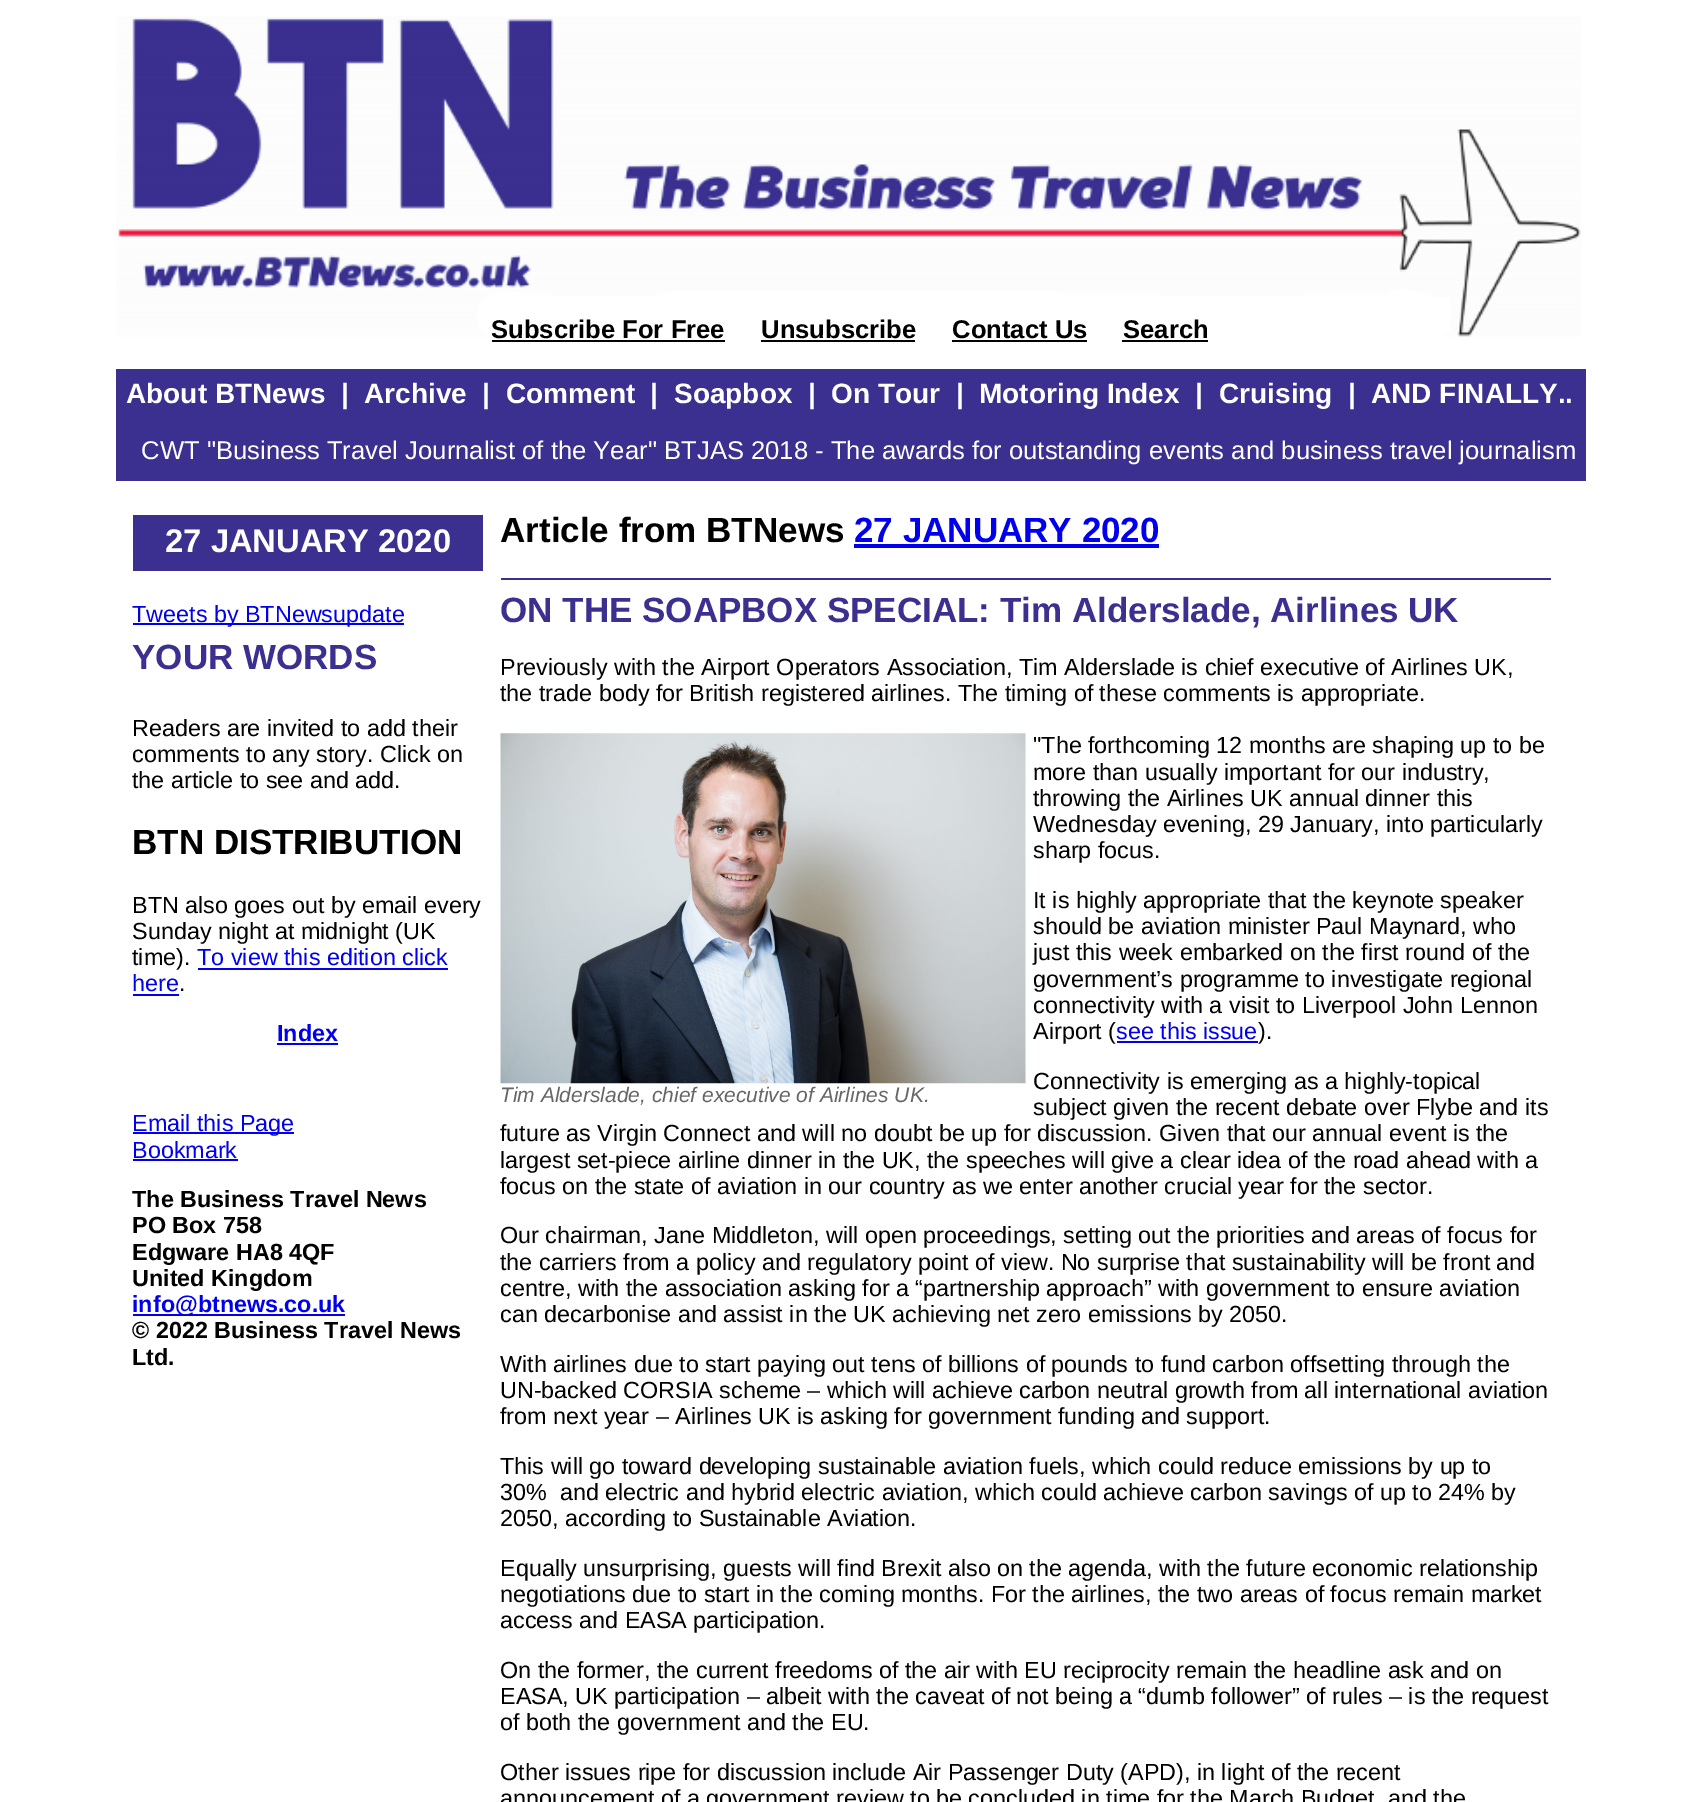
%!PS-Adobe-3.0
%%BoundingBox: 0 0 1699 1802
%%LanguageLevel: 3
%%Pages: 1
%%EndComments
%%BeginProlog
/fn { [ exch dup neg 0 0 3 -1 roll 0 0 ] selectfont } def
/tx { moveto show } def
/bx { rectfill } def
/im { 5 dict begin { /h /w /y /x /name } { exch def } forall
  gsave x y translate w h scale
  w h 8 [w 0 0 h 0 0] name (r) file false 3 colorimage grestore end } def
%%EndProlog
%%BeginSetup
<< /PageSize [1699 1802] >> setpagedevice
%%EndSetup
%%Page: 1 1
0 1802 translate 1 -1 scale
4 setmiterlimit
1 setgray
0 0 1699 1802 bx
(image0.raw) 116 16 1465 321 im
/LiberationSans-Bold 25.65 fn
0 setgray
(Subscribe For Free) 491 338 tx
492 340 233 2 bx
(Unsubscribe) 761 338 tx
761 340 154 2 bx
(Contact Us) 952 338 tx
952 340 135 2 bx
(Search) 1123 338 tx
1122 340 86 2 bx
0.231 0.188 0.565 setrgbcolor
116 369 1470 112 bx
/LiberationSans-Bold 28 fn
1 setgray
(About BTNews) 126 403 tx
(|) 341 403 tx
(Archive) 364 403 tx
(|) 482 403 tx
(Comment) 506 403 tx
(|) 650 403 tx
(Soapbox) 674 403 tx
(|) 808 403 tx
(On Tour) 831 403 tx
(|) 956 403 tx
(Motoring Index) 979 403 tx
(|) 1195 403 tx
(Cruising) 1219 403 tx
(|) 1348 403 tx
(AND FINALLY..) 1371 403 tx
/LiberationSans-Regular 25.65 fn
(CWT "Business Travel Journalist of the Year") 141 459 tx
(BTJAS 2018 - The awards for outstanding events and business travel journalism) 664 459 tx
0.231 0.188 0.565 setrgbcolor
133 515 350 56 bx
/LiberationSans-Bold 32.75 fn
1 setgray
(27 JANUARY 2020) 165 552 tx
0 0 0.933 setrgbcolor
133 623 271 2 bx
/LiberationSans-Regular 23.35 fn
(Tweets by BTNewsupdate) 132 622 tx
/LiberationSans-Bold 35 fn
0.231 0.188 0.565 setrgbcolor
(YOUR WORDS) 132 669 tx
/LiberationSans-Regular 23.35 fn
0 setgray
(Readers are invited to add their) 132 736 tx
(comments to any story. Click on) 132 762 tx
(the article to see and add.) 132 788 tx
/LiberationSans-Bold 35 fn
(BTN DISTRIBUTION) 132 854 tx
/LiberationSans-Regular 23.35 fn
(BTN also goes out by email every) 132 913 tx
(Sunday night at midnight \(UK) 132 939 tx
(time\).) 132 965 tx
0 0 0.933 setrgbcolor
(To view this edition click) 197 965 tx
198 968 250 2 bx
(here) 132 991 tx
133 994 46 2 bx
0 setgray
(.) 179 991 tx
/LiberationSans-Bold 23.35 fn
0 0 0.933 setrgbcolor
(Index) 277 1041 tx
277 1043 61 2 bx
133 1132 161 2 bx
/LiberationSans-Regular 23.35 fn
(Email this Page) 132 1131 tx
(Bookmark) 132 1158 tx
133 1159 105 2 bx
/LiberationSans-Bold 23.35 fn
0 setgray
(The Business Travel News) 132 1207 tx
(PO Box 758) 132 1233 tx
(Edgware HA8 4QF) 132 1260 tx
(United Kingdom) 132 1286 tx
0 0 0.933 setrgbcolor
133 1314 212 2 bx
(info@btnews.co.uk) 132 1312 tx
0 setgray
(© 2022 Business Travel News) 132 1338 tx
(Ltd.) 132 1365 tx
/LiberationSans-Bold 35 fn
(Article from BTNews) 500 542 tx
0 0 0.933 setrgbcolor
(27 JANUARY 2020) 854 542 tx
854 544 305 4 bx
0.231 0.188 0.565 setrgbcolor
501 578 1050 2 bx
(ON THE SOAPBOX SPECIAL: Tim Alderslade, Airlines UK) 500 622 tx
/LiberationSans-Regular 23.35 fn
0 setgray
(Previously with the Airport Operators Association, Tim Alderslade is chief executive of Airlines UK,) 500 675 tx
(the trade body for British registered airlines. The timing of these comments is appropriate.) 500 701 tx
("The forthcoming 12 months are shaping up to be) 1033 753 tx
(more than usually important for our industry,) 1033 780 tx
(throwing the Airlines UK annual dinner this) 1033 806 tx
(Wednesday evening, 29 January, into particularly) 1033 832 tx
(sharp focus.) 1033 858 tx
(image1.raw) 500 733 526 351 im
/LiberationSans-Italic 21 fn
0.4 setgray
(Tim Alderslade, chief executive of Airlines UK.) 500 1102 tx
/LiberationSans-Regular 23.35 fn
0 setgray
(It is highly appropriate that the keynote speaker) 1033 908 tx
(should be aviation minister Paul Maynard, who) 1033 934 tx
(just this week embarked on the first round of the) 1033 960 tx
(government’s programme to investigate regional) 1033 987 tx
(connectivity with a visit to Liverpool John Lennon) 1033 1013 tx
(Airport \() 1033 1039 tx
0 0 0.933 setrgbcolor
(see this issue) 1116 1039 tx
1117 1041 141 2 bx
0 setgray
(\).) 1258 1039 tx
(Connectivity is emerging as a highly-topical) 1033 1089 tx
(subject given the recent debate over Flybe and its) 1033 1115 tx
(future as Virgin Connect and will no doubt be up for discussion. Given that our annual event is the) 500 1141 tx
(largest set-piece airline dinner in the UK, the speeches will give a clear idea of the road ahead with a) 500 1168 tx
(focus on the state of aviation in our country as we enter another crucial year for the sector.) 500 1194 tx
(Our chairman, Jane Middleton, will open proceedings, setting out the priorities and areas of focus for) 500 1243 tx
(the carriers from a policy and regulatory point of view. No surprise that sustainability will be front and) 500 1270 tx
(centre, with the association asking for a “partnership approach” with government to ensure aviation) 500 1296 tx
(can decarbonise and assist in the UK achieving net zero emissions by 2050.) 500 1322 tx
(With airlines due to start paying out tens of billions of pounds to fund carbon offsetting through the) 500 1372 tx
(UN-backed CORSIA scheme – which will achieve carbon neutral growth from all international aviation) 500 1398 tx
(from next year – Airlines UK is asking for government funding and support.) 500 1424 tx
(This will go toward developing sustainable aviation fuels, which could reduce emissions by up to) 500 1474 tx
(30%  and electric and hybrid electric aviation, which could achieve carbon savings of up to 24% by) 500 1500 tx
(2050, according to Sustainable Aviation.) 500 1526 tx
(Equally unsurprising, guests will find Brexit also on the agenda, with the future economic relationship) 500 1576 tx
(negotiations due to start in the coming months. For the airlines, the two areas of focus remain market) 500 1602 tx
(access and EASA participation.) 500 1628 tx
(On the former, the current freedoms of the air with EU reciprocity remain the headline ask and on) 500 1678 tx
(EASA, UK participation – albeit with the caveat of not being a “dumb follower” of rules – is the request) 500 1704 tx
(of both the government and the EU.) 500 1730 tx
(Other issues ripe for discussion include Air Passenger Duty \(APD\), in light of the recent) 500 1780 tx
(announcement of a government review to be concluded in time for the March Budget, and the) 500 1806 tx
showpage
%%EOF
